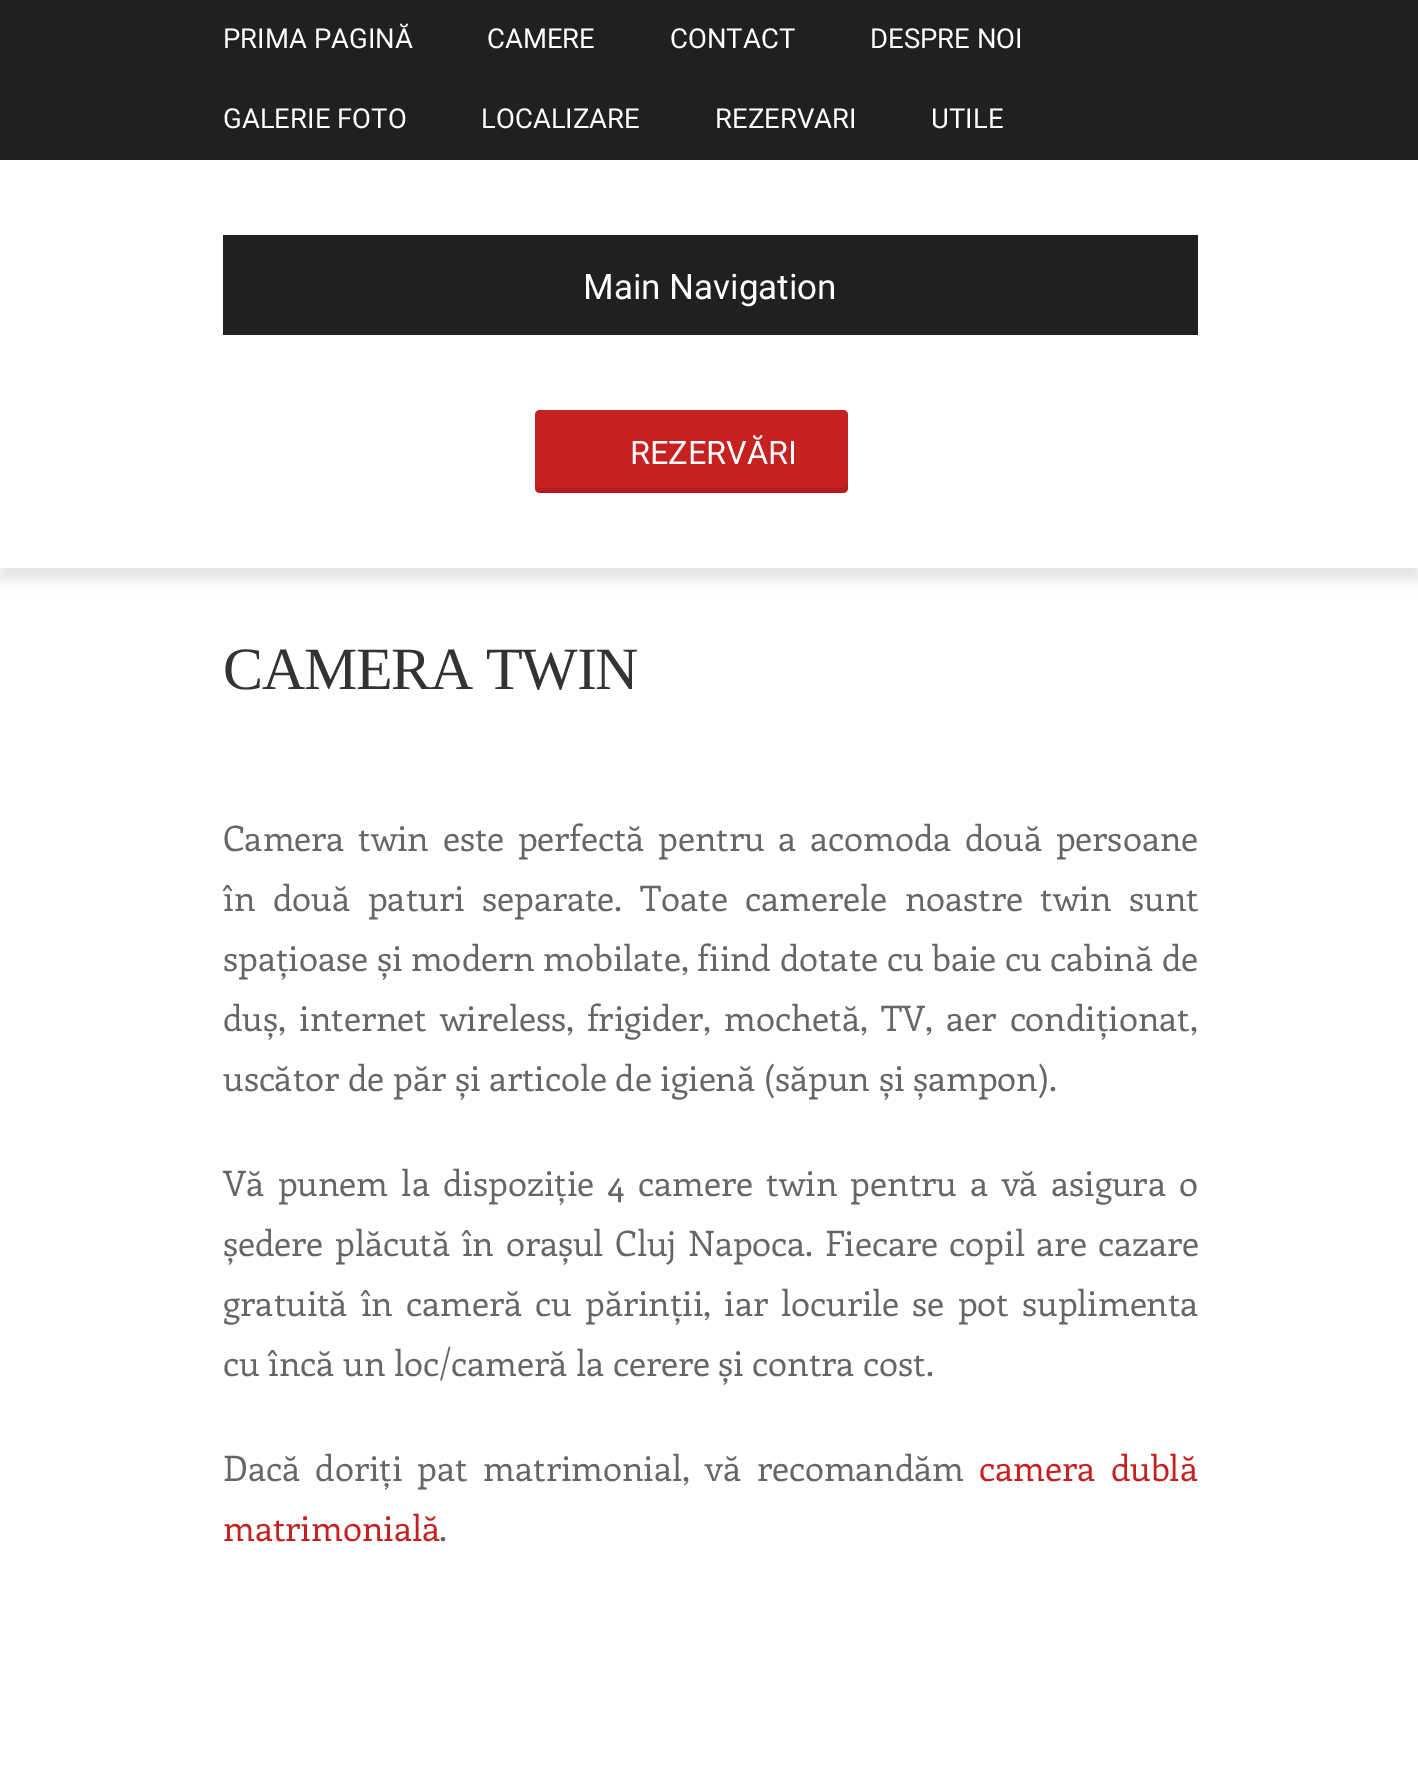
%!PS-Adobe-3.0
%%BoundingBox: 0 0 1418 1784
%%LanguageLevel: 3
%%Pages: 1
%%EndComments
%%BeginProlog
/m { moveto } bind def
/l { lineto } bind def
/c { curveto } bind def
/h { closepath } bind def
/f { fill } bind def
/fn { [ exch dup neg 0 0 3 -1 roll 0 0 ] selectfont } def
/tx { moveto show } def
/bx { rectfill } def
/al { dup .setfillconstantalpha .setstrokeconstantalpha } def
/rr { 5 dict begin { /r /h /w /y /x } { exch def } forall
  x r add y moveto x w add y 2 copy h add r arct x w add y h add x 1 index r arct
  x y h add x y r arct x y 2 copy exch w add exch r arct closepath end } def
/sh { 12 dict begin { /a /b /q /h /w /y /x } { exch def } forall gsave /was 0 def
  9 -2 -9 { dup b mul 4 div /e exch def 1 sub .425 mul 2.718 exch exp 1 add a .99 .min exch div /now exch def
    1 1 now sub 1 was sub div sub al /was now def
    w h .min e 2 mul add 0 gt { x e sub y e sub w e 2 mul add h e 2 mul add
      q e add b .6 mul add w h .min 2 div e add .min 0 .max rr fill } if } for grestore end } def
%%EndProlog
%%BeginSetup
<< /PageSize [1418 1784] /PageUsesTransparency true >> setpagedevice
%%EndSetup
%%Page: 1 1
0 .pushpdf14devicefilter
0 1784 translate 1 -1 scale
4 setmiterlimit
0.125 setgray
0 0 1418 1784 bx
/Roboto-Regular 27.5 fn
1 setgray
(PRIMA PAGINĂ) 223 48 tx
(CAMERE) 487 48 tx
(CONTACT) 670 48 tx
(DESPRE NOI) 870 48 tx
(GALERIE FOTO) 223 128 tx
(LOCALIZARE) 481 128 tx
(REZERVARI) 715 128 tx
(UTILE) 931 128 tx
0 568 1418 1216 bx
0 setgray
0 173 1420 407 0 6 0.1 sh
1 setgray
0 160 1418 408 bx
0.125 setgray
223 235 975 100 bx
/Roboto-Regular 35 fn
1 setgray
(Main Navigation) 583 299 tx
0.776 0.125 0.125 setrgbcolor
535 410 313 83 5 rr f
0.1 al
0 setgray
535 482 m 535 488 l 535 491 537 493 540 493 c 843 493 l 846 493 848 491 848 488 c 848 482 l 848 485 845 488 842 488 c 540 488 l 537 488 535 485 535 482 c h f
/Roboto-Regular 32.5 fn
1 al
1 setgray
(REZERVĂRI) 630 464 tx
/LiberationSerif-Regular 60 fn
0.2 setgray
223 689 m -1.25 0 (CAMERA TWIN) ashow
/Enriqueta-Regular 35 fn
0.4 setgray
223 851 m 5 0 32 (Camera twin este perfectă pentru a acomoda două persoane) widthshow
223 911 m 9 0 32 (în două paturi separate. Toate camerele noastre twin sunt) widthshow
(spațioase și modern mobilate, fiind dotate cu baie cu cabină de) 223 971 tx
223 1031 m 4.5 0 32 (duș, internet wireless, frigider, mochetă, TV, aer condiționat,) widthshow
(uscător de păr și articole de igienă \(săpun și șampon\).) 223 1091 tx
223 1196 m 4.75 0 32 (Vă punem la dispoziție 4 camere twin pentru a vă asigura o) widthshow
223 1256 m 3 0 32 (ședere plăcută în orașul Cluj Napoca. Fiecare copil are cazare) widthshow
223 1316 m 4.5 0 32 (gratuită în cameră cu părinții, iar locurile se pot suplimenta) widthshow
(cu încă un loc/cameră la cerere și contra cost.) 223 1376 tx
223 1481 m 6.75 0 32 (Dacă doriți pat matrimonial, vă recomandăm) widthshow
0.776 0.125 0.125 setrgbcolor
979 1481 m 7 0 32 (camera dublă) widthshow
(matrimonială) 223 1541 tx
0.4 setgray
(.) 439 1541 tx
.poppdf14devicefilter showpage
%%EOF
